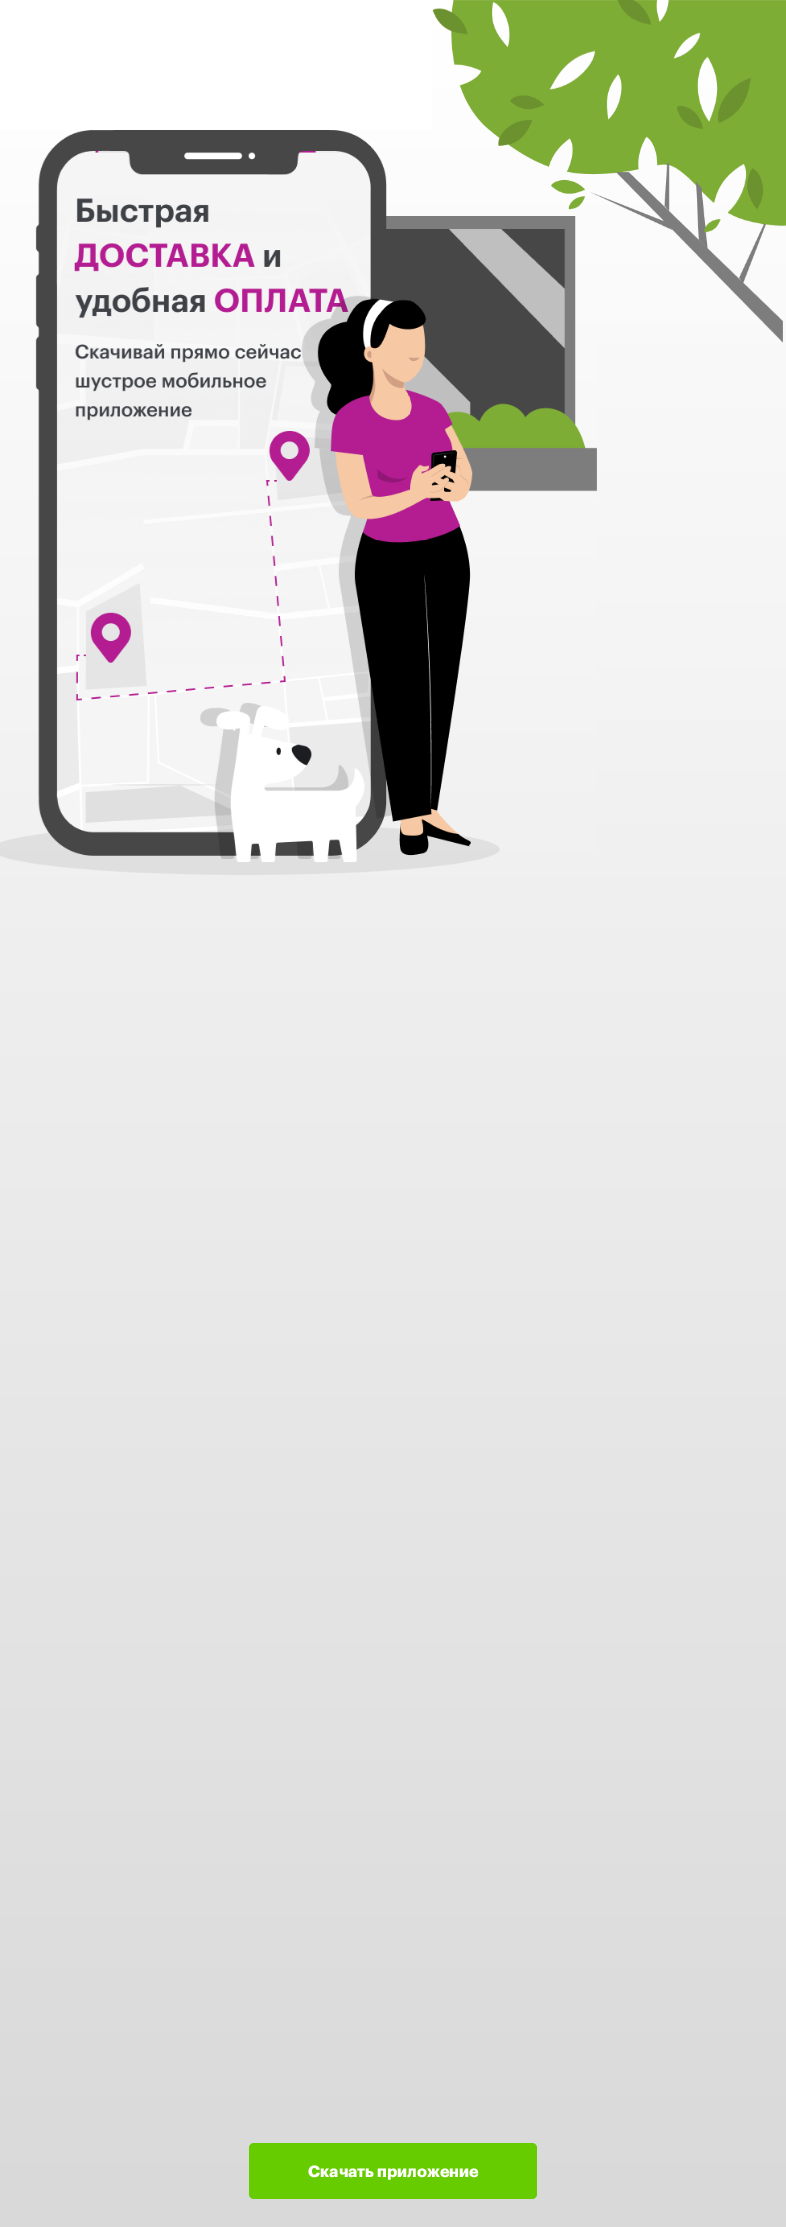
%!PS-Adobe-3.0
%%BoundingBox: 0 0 786 2227
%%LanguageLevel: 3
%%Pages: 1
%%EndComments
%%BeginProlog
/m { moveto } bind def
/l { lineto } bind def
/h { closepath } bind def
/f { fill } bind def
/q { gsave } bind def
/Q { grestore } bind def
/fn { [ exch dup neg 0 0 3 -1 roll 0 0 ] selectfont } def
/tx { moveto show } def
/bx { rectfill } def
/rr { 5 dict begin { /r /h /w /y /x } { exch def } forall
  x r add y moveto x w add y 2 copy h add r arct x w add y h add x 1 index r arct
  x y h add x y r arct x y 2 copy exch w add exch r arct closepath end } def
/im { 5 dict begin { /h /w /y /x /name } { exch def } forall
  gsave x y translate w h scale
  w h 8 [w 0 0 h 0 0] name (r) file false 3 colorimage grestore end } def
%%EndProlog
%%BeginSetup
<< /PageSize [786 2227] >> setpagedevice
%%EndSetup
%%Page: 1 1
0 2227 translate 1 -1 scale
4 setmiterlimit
1 setgray
0 0 786 2227 bx
q 0 147 m 786 147 l 786 2227 l 0 2227 l h clip newpath
<< /ShadingType 2 /ColorSpace /DeviceRGB /Coords [393 0 393 2227] /Extend [true true] /Function << /FunctionType 2 /Domain [0 1] /C0 [1 1 1] /C1 [0.851 0.851 0.851] /N 1 >> >> shfill Q
(image0.raw) 0 130 597 745 im
(image1.raw) 432 0 354 343 im
0.4 0.8 0 setrgbcolor
249 2143 288 56 5 rr f
/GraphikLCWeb-Bold 16 fn
1 setgray
(Скачать приложение) 308 2177 tx
showpage
%%EOF
